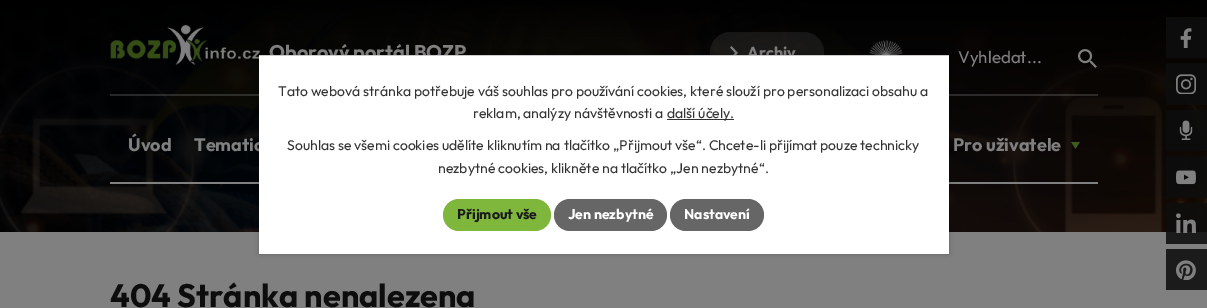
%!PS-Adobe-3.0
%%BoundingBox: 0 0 1207 308
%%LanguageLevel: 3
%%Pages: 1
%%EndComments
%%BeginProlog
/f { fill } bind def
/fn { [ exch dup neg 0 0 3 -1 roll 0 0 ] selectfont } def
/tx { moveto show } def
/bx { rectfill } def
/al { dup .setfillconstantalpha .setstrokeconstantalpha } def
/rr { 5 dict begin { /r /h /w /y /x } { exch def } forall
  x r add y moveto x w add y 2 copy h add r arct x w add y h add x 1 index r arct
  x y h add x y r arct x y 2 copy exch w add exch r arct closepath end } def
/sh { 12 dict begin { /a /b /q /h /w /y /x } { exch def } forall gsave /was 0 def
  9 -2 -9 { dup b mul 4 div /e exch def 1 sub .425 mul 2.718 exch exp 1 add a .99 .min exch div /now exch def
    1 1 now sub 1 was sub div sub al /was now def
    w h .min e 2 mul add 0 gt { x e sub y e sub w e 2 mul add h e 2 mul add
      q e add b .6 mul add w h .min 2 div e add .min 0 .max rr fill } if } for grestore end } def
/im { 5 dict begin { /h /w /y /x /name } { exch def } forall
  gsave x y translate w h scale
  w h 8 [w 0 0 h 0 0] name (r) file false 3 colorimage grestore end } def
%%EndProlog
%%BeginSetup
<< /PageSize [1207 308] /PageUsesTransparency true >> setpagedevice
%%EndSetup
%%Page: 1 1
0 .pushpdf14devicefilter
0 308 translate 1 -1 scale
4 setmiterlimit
0.502 setgray
0 0 1207 308 bx
(image0.raw) 0 0 1207 232 im
(image1.raw) 110 25 150 40 im
/Outfit-Bold 19.75 fn
(Oborový portál BOZP) 269 59 tx
0.15 al
710 32 114 41 20.5 rr f
1 al
(image2.raw) 730 46 8 9 im
/Outfit-Bold 16 fn
(Archiv) 747 58 tx
(image3.raw) 869 40 34 15 im
/Outfit-Regular 17 fn
(Vyhledat...) 958 63 tx
(image4.raw) 1078 49 19 19 im
0.88 al
0.051 setgray
1166 17 41 41 bx
1 al
(image5.raw) 1180 28 12 20 im
0.88 al
1166 63 41 42 bx
1 al
(image6.raw) 1176 74 20 20 im
0.88 al
1166 110 41 41 bx
1 al
(image7.raw) 1179 120 14 20 im
0.88 al
1166 156 41 42 bx
1 al
(image8.raw) 1176 170 20 15 im
0.88 al
1166 203 41 41 bx
1 al
(image9.raw) 1176 213 20 20 im
0.106 setgray
1166 249 41 41 bx
(image10.raw) 1176 260 20 20 im
0.3 al
0.502 setgray
110 94 988 2 bx
/Outfit-Bold 18 fn
1 al
(Úvod) 128 151 tx
(Tematic) 194 151 tx
(Pro uživatele) 953 151 tx
(image11.raw) 1071 142 9 7 im
110 182 988 2 bx
/Outfit-Bold 32.4 fn
0.051 setgray
(404 Stránka nenalezena) 110 307 tx
0 setgray
259 55 690 199 0 2.5 0.2 sh
1 setgray
259 56 690 198 bx
0.8 setgray
259 55 690 1 bx
/Outfit-Regular 14 fn
0.2 setgray
(Tato webová stránka potřebuje váš souhlas pro používání cookies, které slouží pro personalizaci obsahu a) 278 96 tx
(reklam, analýzy návštěvnosti a) 473 118 tx
667 119 67 1 bx
(další účely.) 667 118 tx
(Souhlas se všemi cookies udělíte kliknutím na tlačítko „Přijmout vše“. Chcete-li přijímat pouze technicky) 287 150 tx
(nezbytné cookies, klikněte na tlačítko „Jen nezbytné“.) 438 173 tx
0.498 0.714 0.235 setrgbcolor
443 199 108 32 16 rr f
/Outfit-Bold 14 fn
0.102 setgray
(Přijmout vše) 457 219 tx
0.4 setgray
554 199 113 32 16 rr f
1 setgray
(Jen nezbytné) 568 219 tx
0.4 setgray
670 199 94 32 16 rr f
1 setgray
(Nastavení) 684 219 tx
.poppdf14devicefilter showpage
%%EOF
